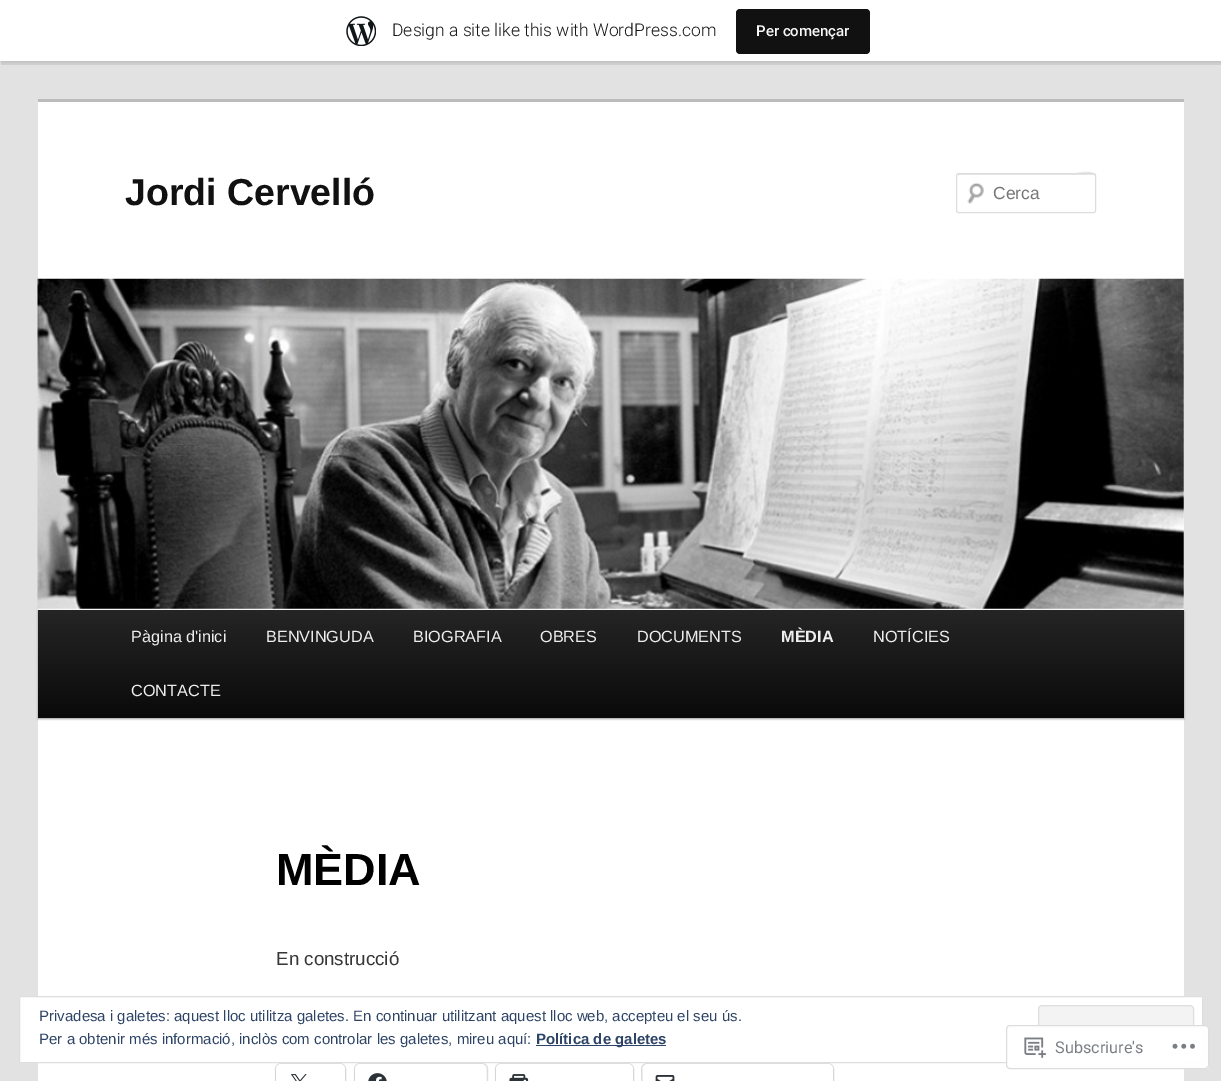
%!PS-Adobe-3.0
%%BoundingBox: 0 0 1221 1081
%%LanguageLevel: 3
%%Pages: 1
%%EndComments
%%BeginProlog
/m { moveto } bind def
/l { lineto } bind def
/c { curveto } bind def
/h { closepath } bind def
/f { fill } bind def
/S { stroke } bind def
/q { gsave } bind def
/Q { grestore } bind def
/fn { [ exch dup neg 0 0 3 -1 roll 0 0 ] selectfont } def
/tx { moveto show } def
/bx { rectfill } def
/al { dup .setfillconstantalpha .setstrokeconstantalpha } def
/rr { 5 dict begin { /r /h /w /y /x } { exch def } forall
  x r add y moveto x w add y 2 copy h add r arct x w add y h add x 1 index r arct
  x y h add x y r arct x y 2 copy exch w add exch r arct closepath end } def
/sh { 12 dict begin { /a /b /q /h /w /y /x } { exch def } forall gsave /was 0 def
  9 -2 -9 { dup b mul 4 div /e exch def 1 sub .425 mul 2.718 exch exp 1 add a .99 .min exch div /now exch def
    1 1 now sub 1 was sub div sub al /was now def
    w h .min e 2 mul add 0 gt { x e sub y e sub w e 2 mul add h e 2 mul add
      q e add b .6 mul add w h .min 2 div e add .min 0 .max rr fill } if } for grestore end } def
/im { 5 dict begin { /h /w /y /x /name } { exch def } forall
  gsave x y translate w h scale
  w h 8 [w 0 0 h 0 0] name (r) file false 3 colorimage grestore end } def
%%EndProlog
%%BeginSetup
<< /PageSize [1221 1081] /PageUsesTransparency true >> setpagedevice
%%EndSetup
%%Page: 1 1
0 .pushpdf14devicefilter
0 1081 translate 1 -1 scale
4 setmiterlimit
0.886 setgray
0 0 1221 1081 bx
0 setgray
0 1 1221 62 0 1 0.05 sh
0.08 al
1 61 m 1 65 l 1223 65 l 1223 4 l 1221 4 l 1221 61 l h f
1 al
1 setgray
0 0 1221 61 bx
(image0.raw) 346 16 30 30 im
/Roboto-Light 17.5 fn
0.09 setgray
(Design a site like this with WordPress.com) 392 36 tx
0.067 setgray
736 9 134 45 4 rr f
/Roboto-Medium 15 fn
0.965 0.969 0.969 setrgbcolor
(Per començar) 756 36 tx
1 setgray
38 102 1146 979 bx
0.733 setgray
38 99 1146 3 bx
/LiberationSans-Bold 37.5 fn
0.067 setgray
(Jordi Cervelló) 125 205 tx
(image1.raw) 967 182 17 22 im
0.902 setgray
959 175 m 1094 175 l 1095 176 l 1095 168 1072 174 1072 174 c 958 174 l 958 176 l h f
0.867 setgray
956.5 173.5 139 39 2 rr S
/LiberationSans-Regular 17.5 fn
0.459 setgray
(Cerca) 993 199 tx
0 setgray
38 611 1146 108 0 1 0.4 sh
(image2.raw) 37 278 1147 331 im
q 38 610 m 1184 610 l 1184 718 l 38 718 l h clip newpath
<< /ShadingType 2 /ColorSpace /DeviceRGB /Coords [611 610 611 718] /Extend [true true] /Function << /FunctionType 2 /Domain [0 1] /C0 [0.145 0.145 0.145] /C1 [0.039 0.039 0.039] /N 1 >> >> shfill Q
/LiberationSans-Regular 16.25 fn
0.933 setgray
(Pàgina d'inici) 131 642 tx
(BENVINGUDA) 266 642 tx
(BIOGRAFIA) 413 642 tx
(OBRES) 540 642 tx
(DOCUMENTS) 637 642 tx
/LiberationSans-Bold 16.25 fn
(MÈDIA) 781 642 tx
/LiberationSans-Regular 16.25 fn
(NOTÍCIES) 873 642 tx
(CONTACTE) 131 696 tx
/LiberationSans-Bold 45 fn
0 setgray
(MÈDIA) 276 885 tx
/LiberationSans-Regular 18.75 fn
0.216 setgray
(En construcció) 276 965 tx
0.878 setgray
275.5 1063.5 70 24 5.5 rr S
0 setgray
276 1065 69 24 5 1 0.12 sh
1 setgray
276 1064 69 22 5 rr f
(image3.raw) 290 1074 17 7 im
0.878 setgray
354.5 1063.5 133 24 5.5 rr S
0 setgray
355 1065 131 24 5 1 0.12 sh
1 setgray
355 1064 131 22 5 rr f
(image4.raw) 368 1073 19 8 im
0.878 setgray
495.5 1063.5 138 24 5.5 rr S
0 setgray
496 1065 137 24 5 1 0.12 sh
1 setgray
496 1064 137 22 5 rr f
(image5.raw) 509 1074 20 7 im
0.878 setgray
641.5 1063.5 192 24 5.5 rr S
0 setgray
643 1065 190 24 5 1 0.12 sh
1 setgray
643 1064 190 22 5 rr f
(image6.raw) 655 1075 20 6 im
19.5 996.5 m 1202.5 996.5 l 1202.5 1062.5 l 19.5 1062.5 l h q f Q
0.871 setgray
S
/LiberationSans-Regular 15 fn
0.18 0.267 0.404 setrgbcolor
(Privadesa i galetes: aquest lloc utilitza galetes. En continuar utilitzant aquest lloc web, accepteu el seu ús.) 39 1021 tx
0.953 setgray
1038.5 1005.5 155 48 3.5 rr q f Q
0.871 setgray
S
0.18 0.267 0.404 setrgbcolor
(Per a obtenir més informació, inclòs com controlar les galetes, mireu aquí:) 39 1044 tx
536 1045 130 1 bx
/LiberationSans-Bold 15 fn
(Política de galetes) 536 1044 tx
0.98 al
1 setgray
1006 1025 203 44 4 rr f
0.863 0.863 0.871 setrgbcolor
1006.5 1025.5 202 43 3.5 rr S
1 al
(image7.raw) 1024 1037 22 21 im
/Roboto-Regular 16.25 fn
0.482 0.498 0.518 setrgbcolor
(Subscriure's) 1055 1053 tx
(image8.raw) 1172 1043 23 6 im
.poppdf14devicefilter showpage
%%EOF
